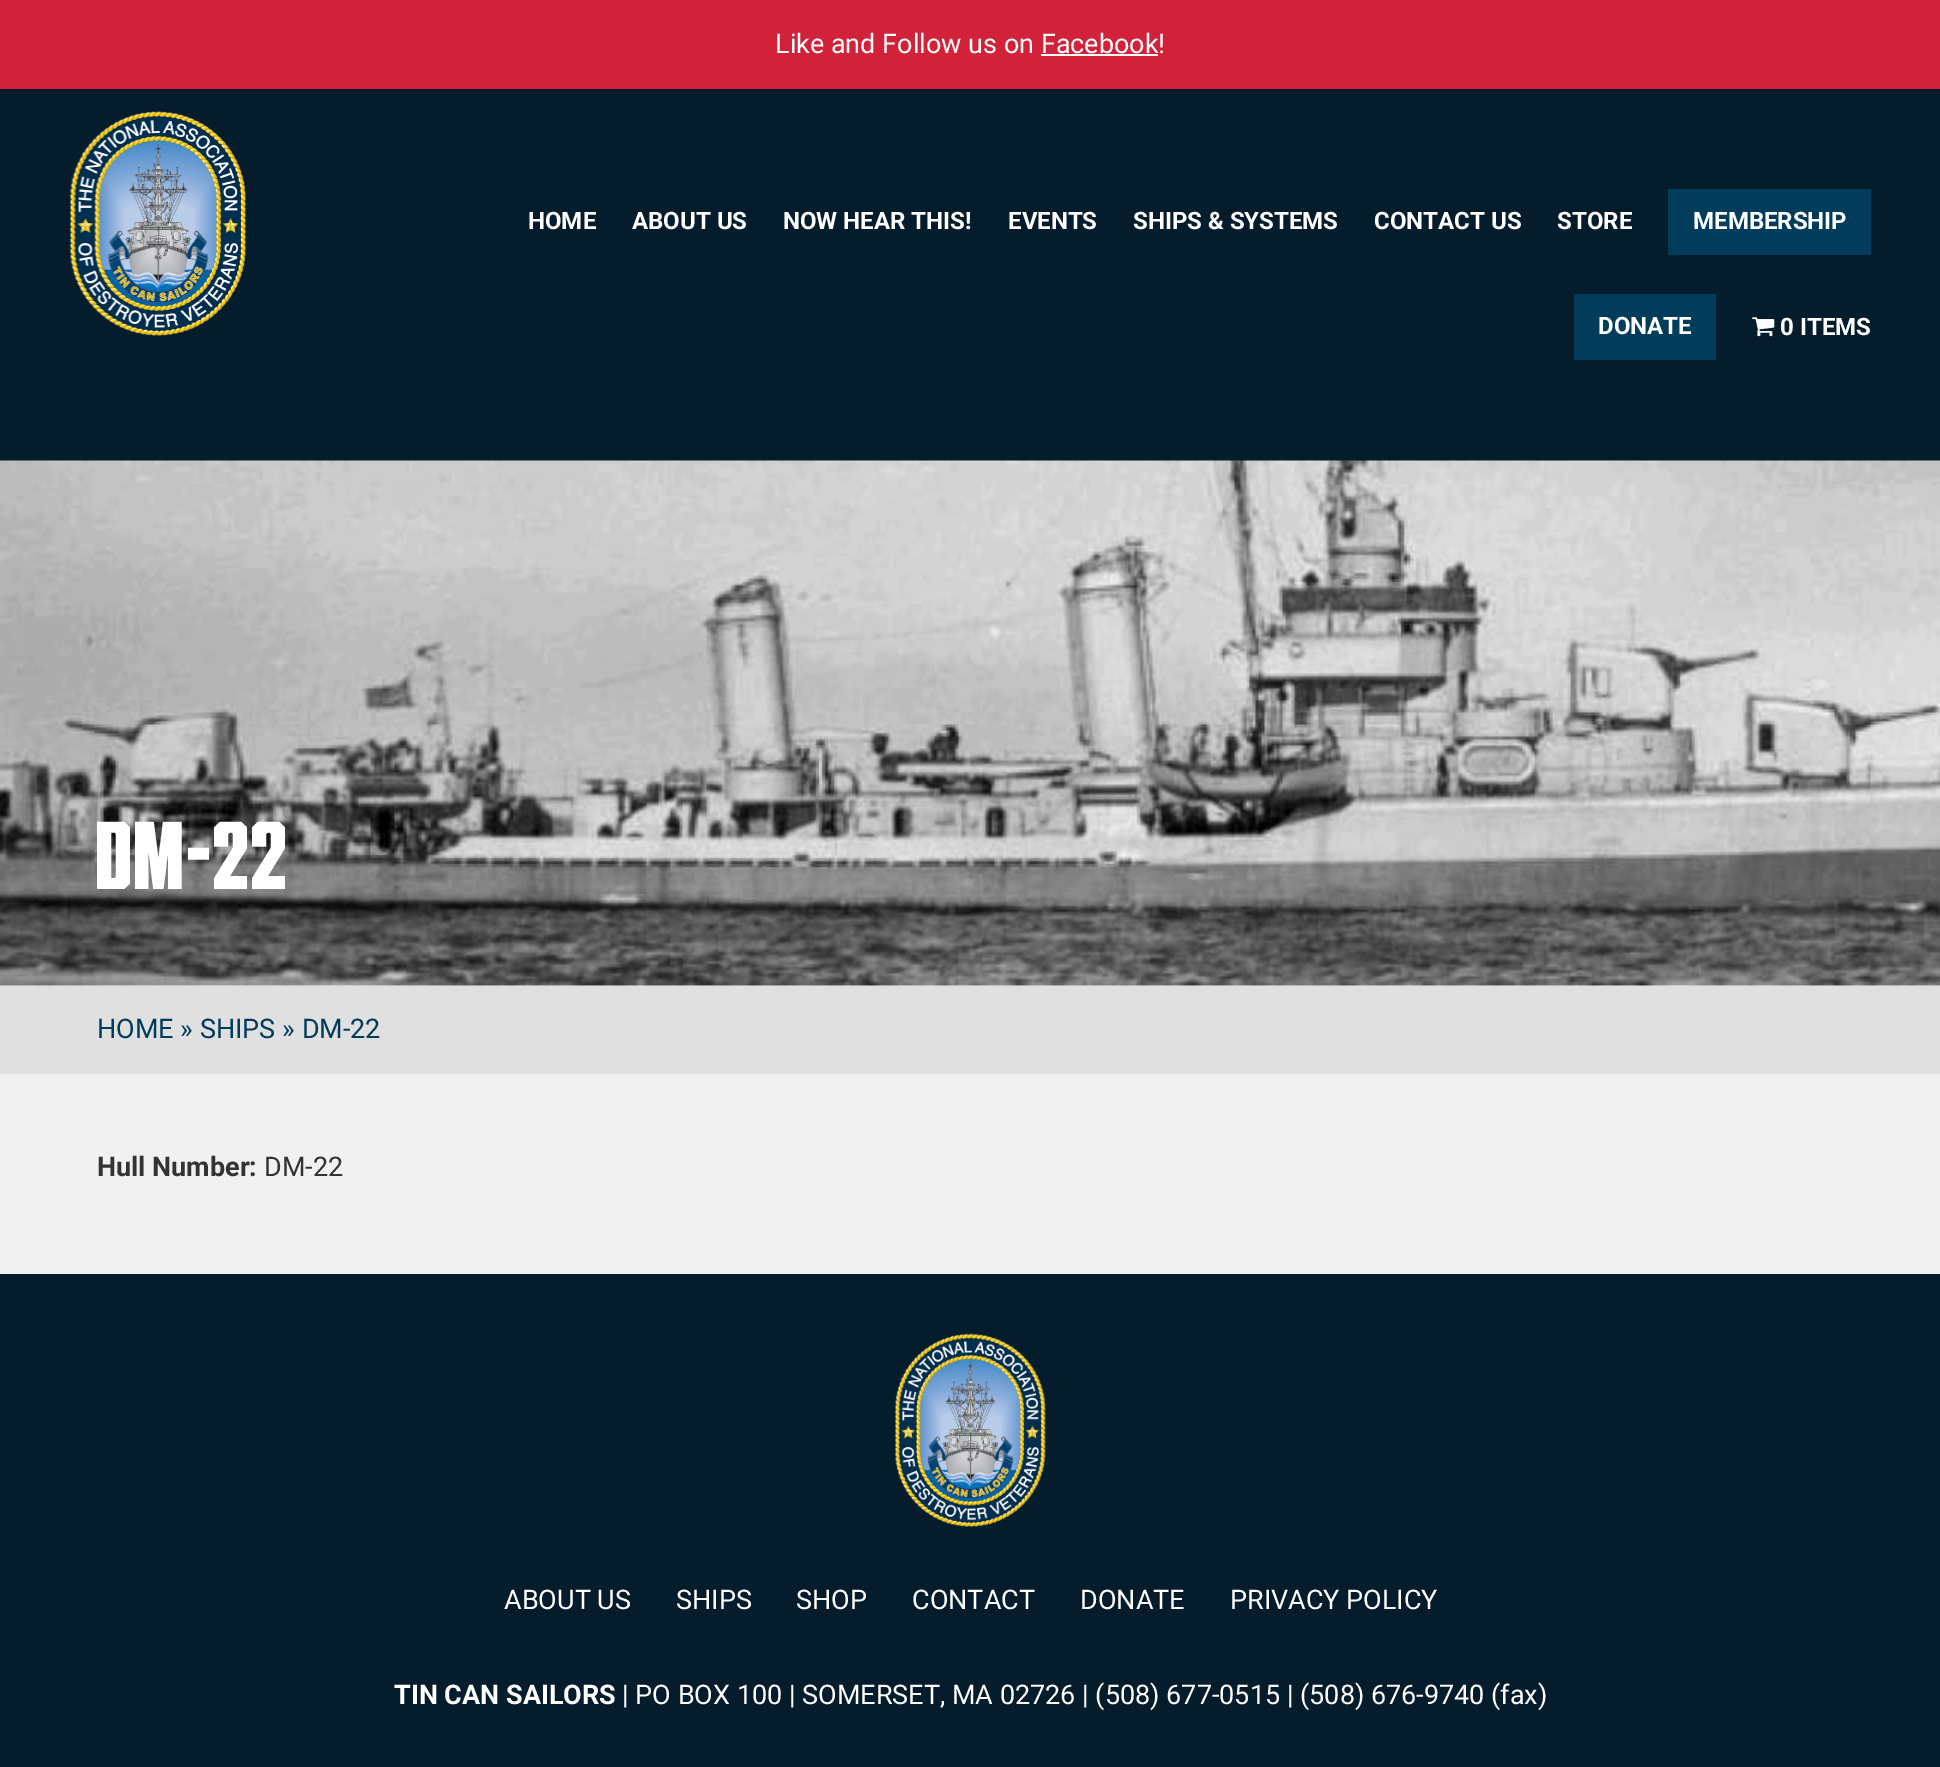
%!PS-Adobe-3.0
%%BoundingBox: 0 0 1940 1767
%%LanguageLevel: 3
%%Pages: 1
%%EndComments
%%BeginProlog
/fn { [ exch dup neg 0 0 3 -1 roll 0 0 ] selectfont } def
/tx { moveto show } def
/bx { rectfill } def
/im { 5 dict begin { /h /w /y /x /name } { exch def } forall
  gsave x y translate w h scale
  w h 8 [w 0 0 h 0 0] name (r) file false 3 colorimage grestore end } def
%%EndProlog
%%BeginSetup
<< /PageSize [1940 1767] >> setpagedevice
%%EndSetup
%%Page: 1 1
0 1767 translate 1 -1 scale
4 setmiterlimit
0.945 setgray
0 0 1940 1767 bx
0.82 0.133 0.224 setrgbcolor
0 0 1940 89 bx
/Roboto-Regular 27 fn
1 setgray
(Like and Follow us on Facebook!) 775 53 tx
0.996 setgray
1041 54 117 2 bx
0.02 0.11 0.173 setrgbcolor
0 89 1940 372 bx
(image0.raw) 70 111 176 225 im
/Roboto-Bold 24 fn
1 setgray
(HOME) 528 229 tx
(ABOUT US) 632 229 tx
(NOW HEAR THIS!) 783 229 tx
(EVENTS) 1008 229 tx
(SHIPS & SYSTEMS) 1133 229 tx
(CONTACT US) 1374 229 tx
(STORE) 1557 229 tx
0.004 0.235 0.357 setrgbcolor
1668 189 203 66 bx
1 setgray
(MEMBERSHIP) 1693 229 tx
0.004 0.235 0.357 setrgbcolor
1574 294 142 66 bx
1 setgray
(DONATE) 1598 334 tx
(image1.raw) 1752 317 23 20 im
(0 ITEMS) 1780 335 tx
(image2.raw) 0 460 1940 526 im
/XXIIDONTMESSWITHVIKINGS-Regular 96 fn
(DM-22) 97 889 tx
0.878 setgray
0 986 1940 88 bx
/Roboto-Regular 27 fn
0.004 0.235 0.357 setrgbcolor
(HOME » SHIPS » DM-22) 97 1038 tx
/Roboto-Bold 27 fn
0.2 setgray
(Hull Number:) 97 1176 tx
/Roboto-Regular 27 fn
(DM-22) 264 1176 tx
0.02 0.11 0.173 setrgbcolor
0 1274 1940 493 bx
(image3.raw) 895 1333 151 194 im
1 setgray
(ABOUT US) 504 1609 tx
(SHIPS) 676 1609 tx
(SHOP) 796 1609 tx
(CONTACT) 912 1609 tx
(DONATE) 1080 1609 tx
(PRIVACY POLICY) 1230 1609 tx
/Roboto-Bold 27 fn
(TIN CAN SAILORS) 394 1704 tx
/Roboto-Regular 27 fn
(| PO BOX 100 | SOMERSET, MA 02726 | \(508\) 677-0515 | \(508\) 676-9740 \(fax\)) 622 1704 tx
showpage
%%EOF
